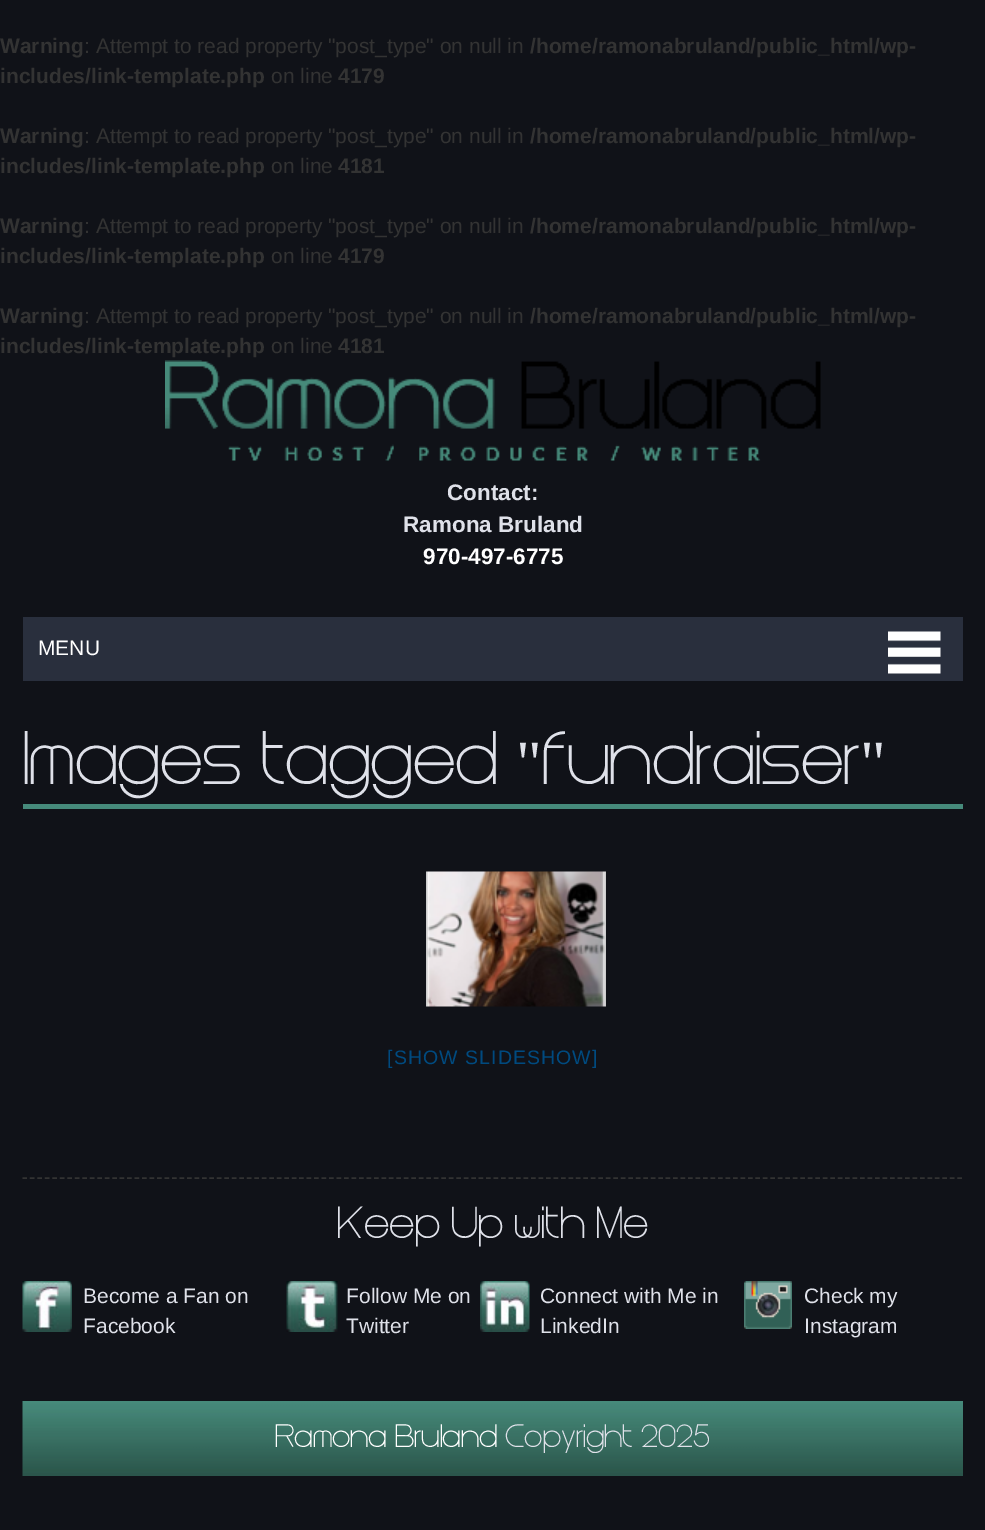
%!PS-Adobe-3.0
%%BoundingBox: 0 0 985 1530
%%LanguageLevel: 3
%%Pages: 1
%%EndComments
%%BeginProlog
/m { moveto } bind def
/l { lineto } bind def
/S { stroke } bind def
/w { setlinewidth } bind def
/fn { [ exch dup neg 0 0 3 -1 roll 0 0 ] selectfont } def
/tx { moveto show } def
/bx { rectfill } def
/im { 5 dict begin { /h /w /y /x /name } { exch def } forall
  gsave x y translate w h scale
  w h 8 [w 0 0 h 0 0] name (r) file false 3 colorimage grestore end } def
%%EndProlog
%%BeginSetup
<< /PageSize [985 1530] >> setpagedevice
%%EndSetup
%%Page: 1 1
0 1530 translate 1 -1 scale
4 setmiterlimit
0.063 0.071 0.094 setrgbcolor
0 0 985 1530 bx
/LiberationSans-Bold 21 fn
0.2 setgray
(Warning) 0 53 tx
/LiberationSans-Regular 21 fn
(: Attempt to read property "post_type" on null in) 84 53 tx
/LiberationSans-Bold 21 fn
(/home/ramonabruland/public_html/wp-) 530 53 tx
(includes/link-template.php) 0 83 tx
/LiberationSans-Regular 21 fn
(on line) 271 83 tx
/LiberationSans-Bold 21 fn
(4179) 338 83 tx
(Warning) 0 143 tx
/LiberationSans-Regular 21 fn
(: Attempt to read property "post_type" on null in) 84 143 tx
/LiberationSans-Bold 21 fn
(/home/ramonabruland/public_html/wp-) 530 143 tx
(includes/link-template.php) 0 173 tx
/LiberationSans-Regular 21 fn
(on line) 271 173 tx
/LiberationSans-Bold 21 fn
(4181) 338 173 tx
(Warning) 0 233 tx
/LiberationSans-Regular 21 fn
(: Attempt to read property "post_type" on null in) 84 233 tx
/LiberationSans-Bold 21 fn
(/home/ramonabruland/public_html/wp-) 530 233 tx
(includes/link-template.php) 0 263 tx
/LiberationSans-Regular 21 fn
(on line) 271 263 tx
/LiberationSans-Bold 21 fn
(4179) 338 263 tx
(Warning) 0 323 tx
/LiberationSans-Regular 21 fn
(: Attempt to read property "post_type" on null in) 84 323 tx
/LiberationSans-Bold 21 fn
(/home/ramonabruland/public_html/wp-) 530 323 tx
(includes/link-template.php) 0 353 tx
/LiberationSans-Regular 21 fn
(on line) 271 353 tx
/LiberationSans-Bold 21 fn
(4181) 338 353 tx
(image0.raw) 165 360 656 101 im
/LiberationSans-Bold 22.5 fn
0.875 0.882 0.914 setrgbcolor
(Contact:) 447 500 tx
(Ramona Bruland) 403 532 tx
1 setgray
(970-497-6775) 423 564 tx
0.161 0.184 0.239 setrgbcolor
23 617 940 64 bx
/LiberationSans-Regular 21 fn
1 setgray
(MENU) 38 655 tx
(image1.raw) 888 631 53 43 im
0.275 0.541 0.482 setrgbcolor
23 804 940 5 bx
/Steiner-Light 63 fn
0.875 0.882 0.914 setrgbcolor
(Images tagged) 23 784 tx
/LiberationSerif-Regular 63 fn
(") 516 784 tx
/Steiner-Light 63 fn
(fundraiser) 542 784 tx
/LiberationSerif-Regular 63 fn
(") 860 784 tx
(image2.raw) 426 871 180 136 im
/LiberationSans-Regular 19.5 fn
0 0.29 0.498 setrgbcolor
387 1064 m 1.1 0 ([SHOW SLIDESHOW]) ashow
0.2 setgray
1.5 w
[4.5 2.98] 0 setdash
22.5 1178 m 963 1178 l S
/Steiner-Light 37.5 fn
0.875 0.882 0.914 setrgbcolor
(Keep Up with Me) 337 1238 tx
(image3.raw) 22 1281 50 51 im
/LiberationSans-Regular 21 fn
(Become a Fan on) 83 1303 tx
(Facebook) 83 1333 tx
(image4.raw) 286 1281 52 51 im
(Follow Me on) 346 1303 tx
(Twitter) 346 1333 tx
(image5.raw) 480 1281 50 51 im
(Connect with Me in) 540 1303 tx
(LinkedIn) 540 1333 tx
(image6.raw) 744 1281 48 48 im
(Check my) 804 1303 tx
(Instagram) 804 1333 tx
(image7.raw) 22 1401 941 75 im
/Steiner-Light 27 fn
1 setgray
(Ramona Bruland) 275 1447 tx
0.875 0.882 0.914 setrgbcolor
(Copyright 2025) 505 1447 tx
showpage
%%EOF
